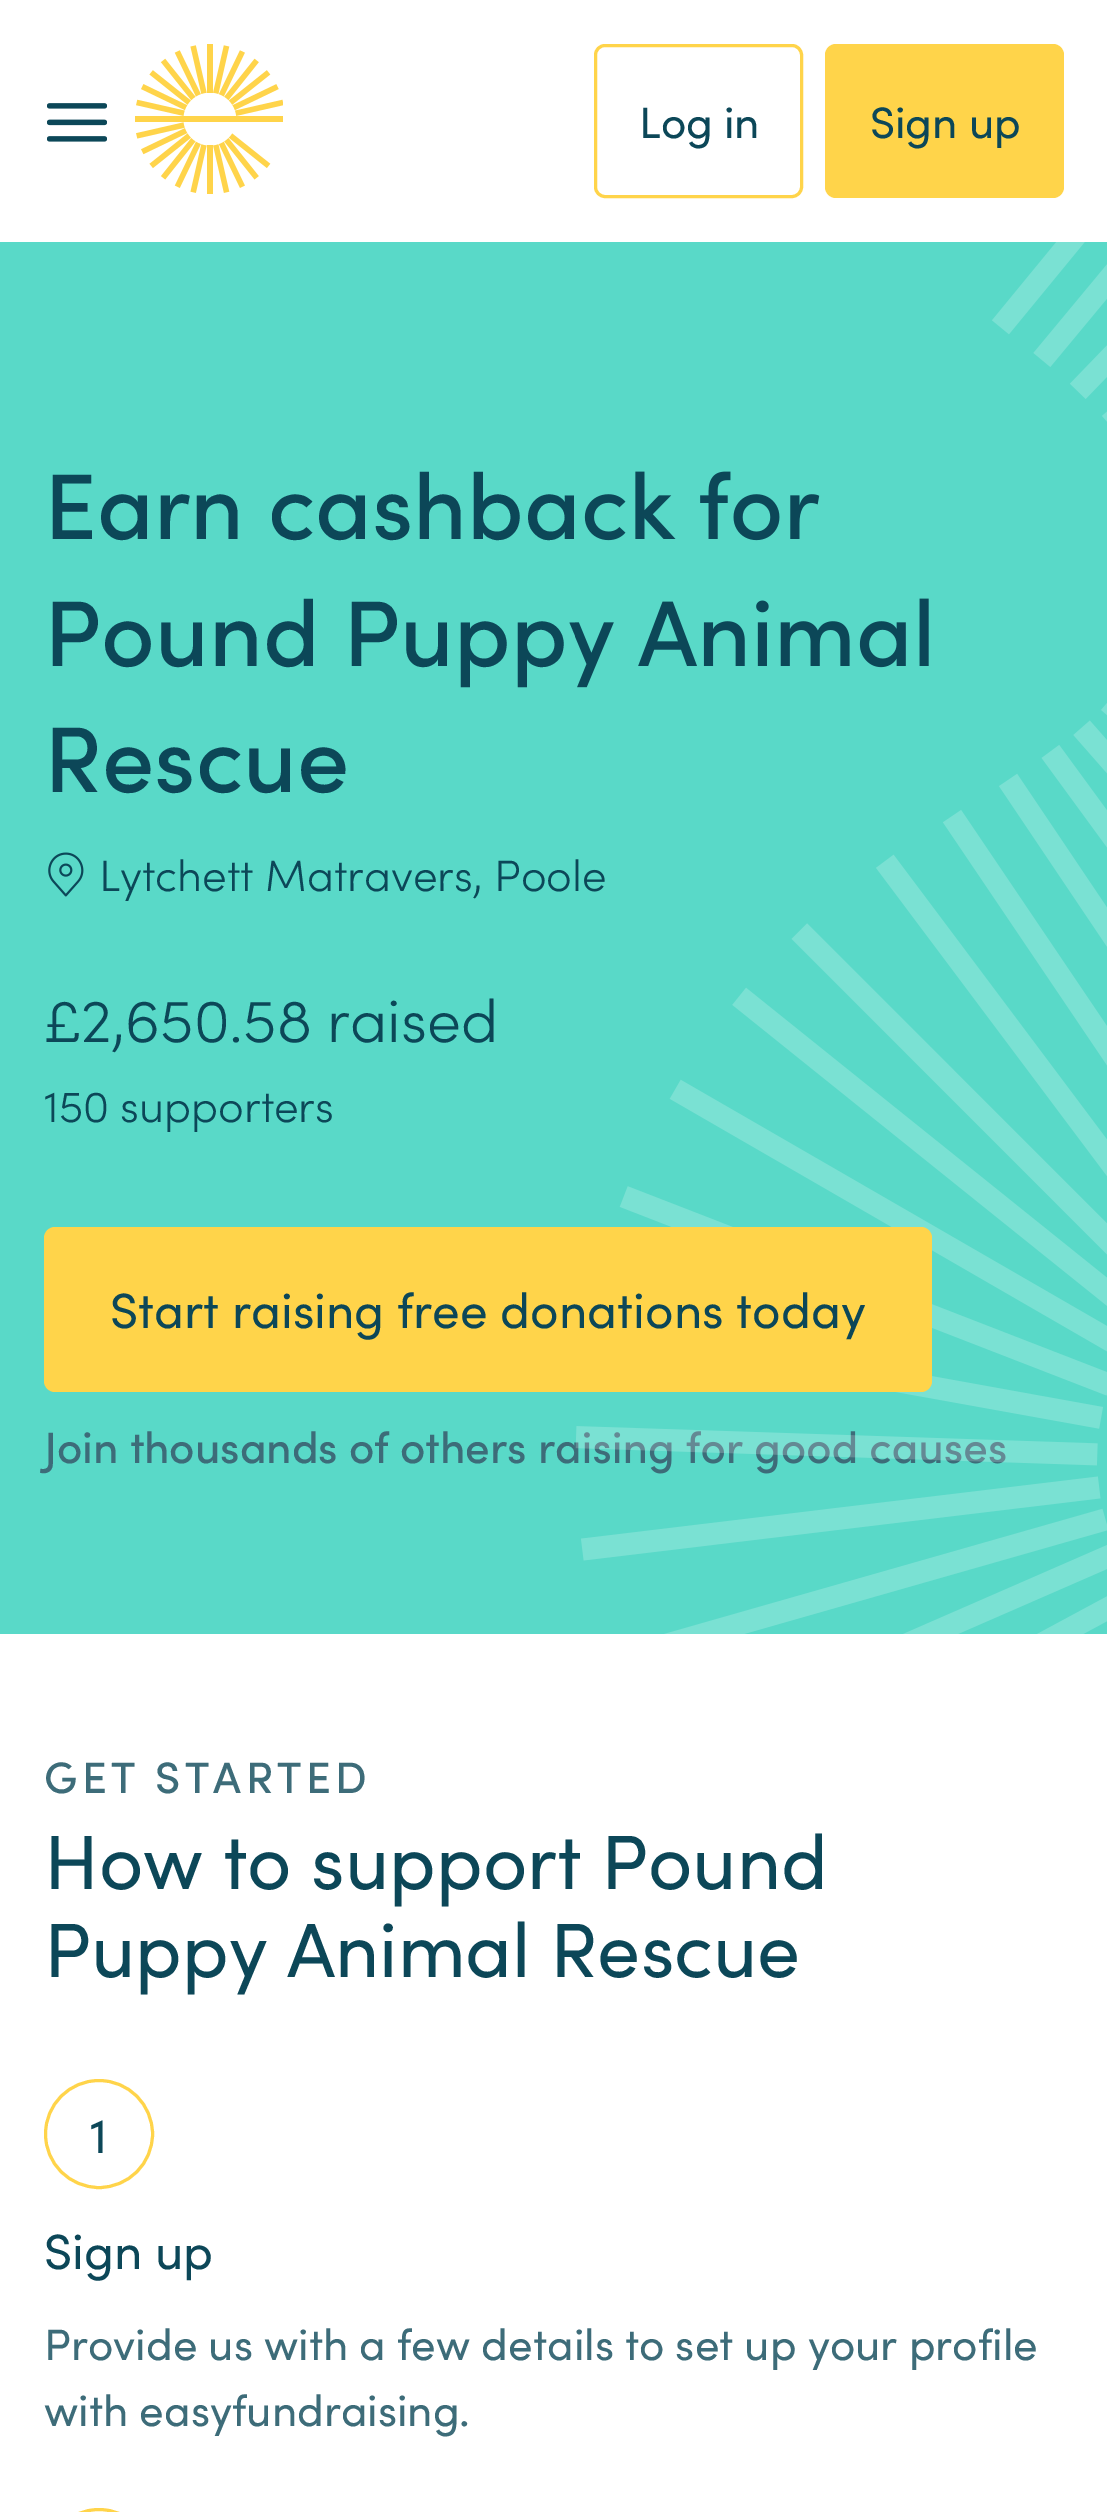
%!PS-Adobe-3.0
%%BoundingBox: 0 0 1107 2512
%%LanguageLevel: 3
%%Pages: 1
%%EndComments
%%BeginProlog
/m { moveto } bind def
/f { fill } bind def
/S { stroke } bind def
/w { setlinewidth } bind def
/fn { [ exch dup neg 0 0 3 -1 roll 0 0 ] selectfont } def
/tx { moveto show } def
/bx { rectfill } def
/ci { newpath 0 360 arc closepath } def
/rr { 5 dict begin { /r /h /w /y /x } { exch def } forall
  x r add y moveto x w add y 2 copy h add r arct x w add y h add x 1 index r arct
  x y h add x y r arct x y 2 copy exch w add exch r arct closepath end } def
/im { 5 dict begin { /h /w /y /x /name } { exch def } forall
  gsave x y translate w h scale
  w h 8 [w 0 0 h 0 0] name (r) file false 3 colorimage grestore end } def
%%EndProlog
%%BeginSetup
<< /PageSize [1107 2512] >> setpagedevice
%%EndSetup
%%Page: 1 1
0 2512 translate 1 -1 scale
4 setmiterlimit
1 setgray
0 0 1107 2512 bx
(image0.raw) 47 103 60 39 im
(image1.raw) 135 44 148 150 im
1 0.831 0.29 setrgbcolor
3 w
595.5 45.5 206 151 9.5 rr S
/Sofia-Regular 44 fn
0.047 0.278 0.345 setrgbcolor
(Log in) 639 138 tx
1 0.831 0.29 setrgbcolor
825 44 239 154 11 rr f
0.047 0.278 0.345 setrgbcolor
(Sign up) 870 138 tx
0.349 0.851 0.784 setrgbcolor
0 242 1107 1392 bx
/Sofia-Medium 93.5 fn
0.047 0.278 0.345 setrgbcolor
(Earn cashback for) 44 539 tx
(Pound Puppy Animal) 44 666 tx
/Sofia-Light 44 fn
(Lytchett Matravers, Poole) 99 891 tx
/Sofia-Medium 44 fn
0.239 0.424 0.475 setrgbcolor
(Join thousands of others raising for good causes) 44 1463 tx
(image2.raw) 575 242 532 1392 im
/Sofia-Medium 93.5 fn
0.047 0.278 0.345 setrgbcolor
(Rescue) 44 792 tx
(image3.raw) 48 852 36 45 im
/Sofia-Light 60.5 fn
(£2,650.58 raised) 44 1042 tx
/Sofia-Light 44 fn
(150 supporters) 44 1122 tx
1 0.831 0.29 setrgbcolor
44 1227 888 165 11 rr f
/Sofia-Regular 49.5 fn
0.047 0.278 0.345 setrgbcolor
(Start raising free donations today) 110 1328 tx
/Sofia-Medium 44 fn
0.239 0.424 0.475 setrgbcolor
44 1793 m 4.4 0 (GET STARTED) ashow
/Sofia-Regular 77 fn
0.047 0.278 0.345 setrgbcolor
(How to support Pound) 44 1889 tx
(Puppy Animal Rescue) 44 1977 tx
1 0.831 0.29 setrgbcolor
99 2134 53.5 ci S
/Sofia-Regular 49.5 fn
0.047 0.278 0.345 setrgbcolor
(1) 90 2153 tx
(Sign up) 44 2269 tx
/Sofia-Regular 44 fn
0.239 0.424 0.475 setrgbcolor
(Provide us with a few details to set up your profile) 44 2360 tx
(with easyfundraising.) 44 2426 tx
1 0.831 0.29 setrgbcolor
45.5 2509.5 107 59 53.5 rr S
showpage
%%EOF
